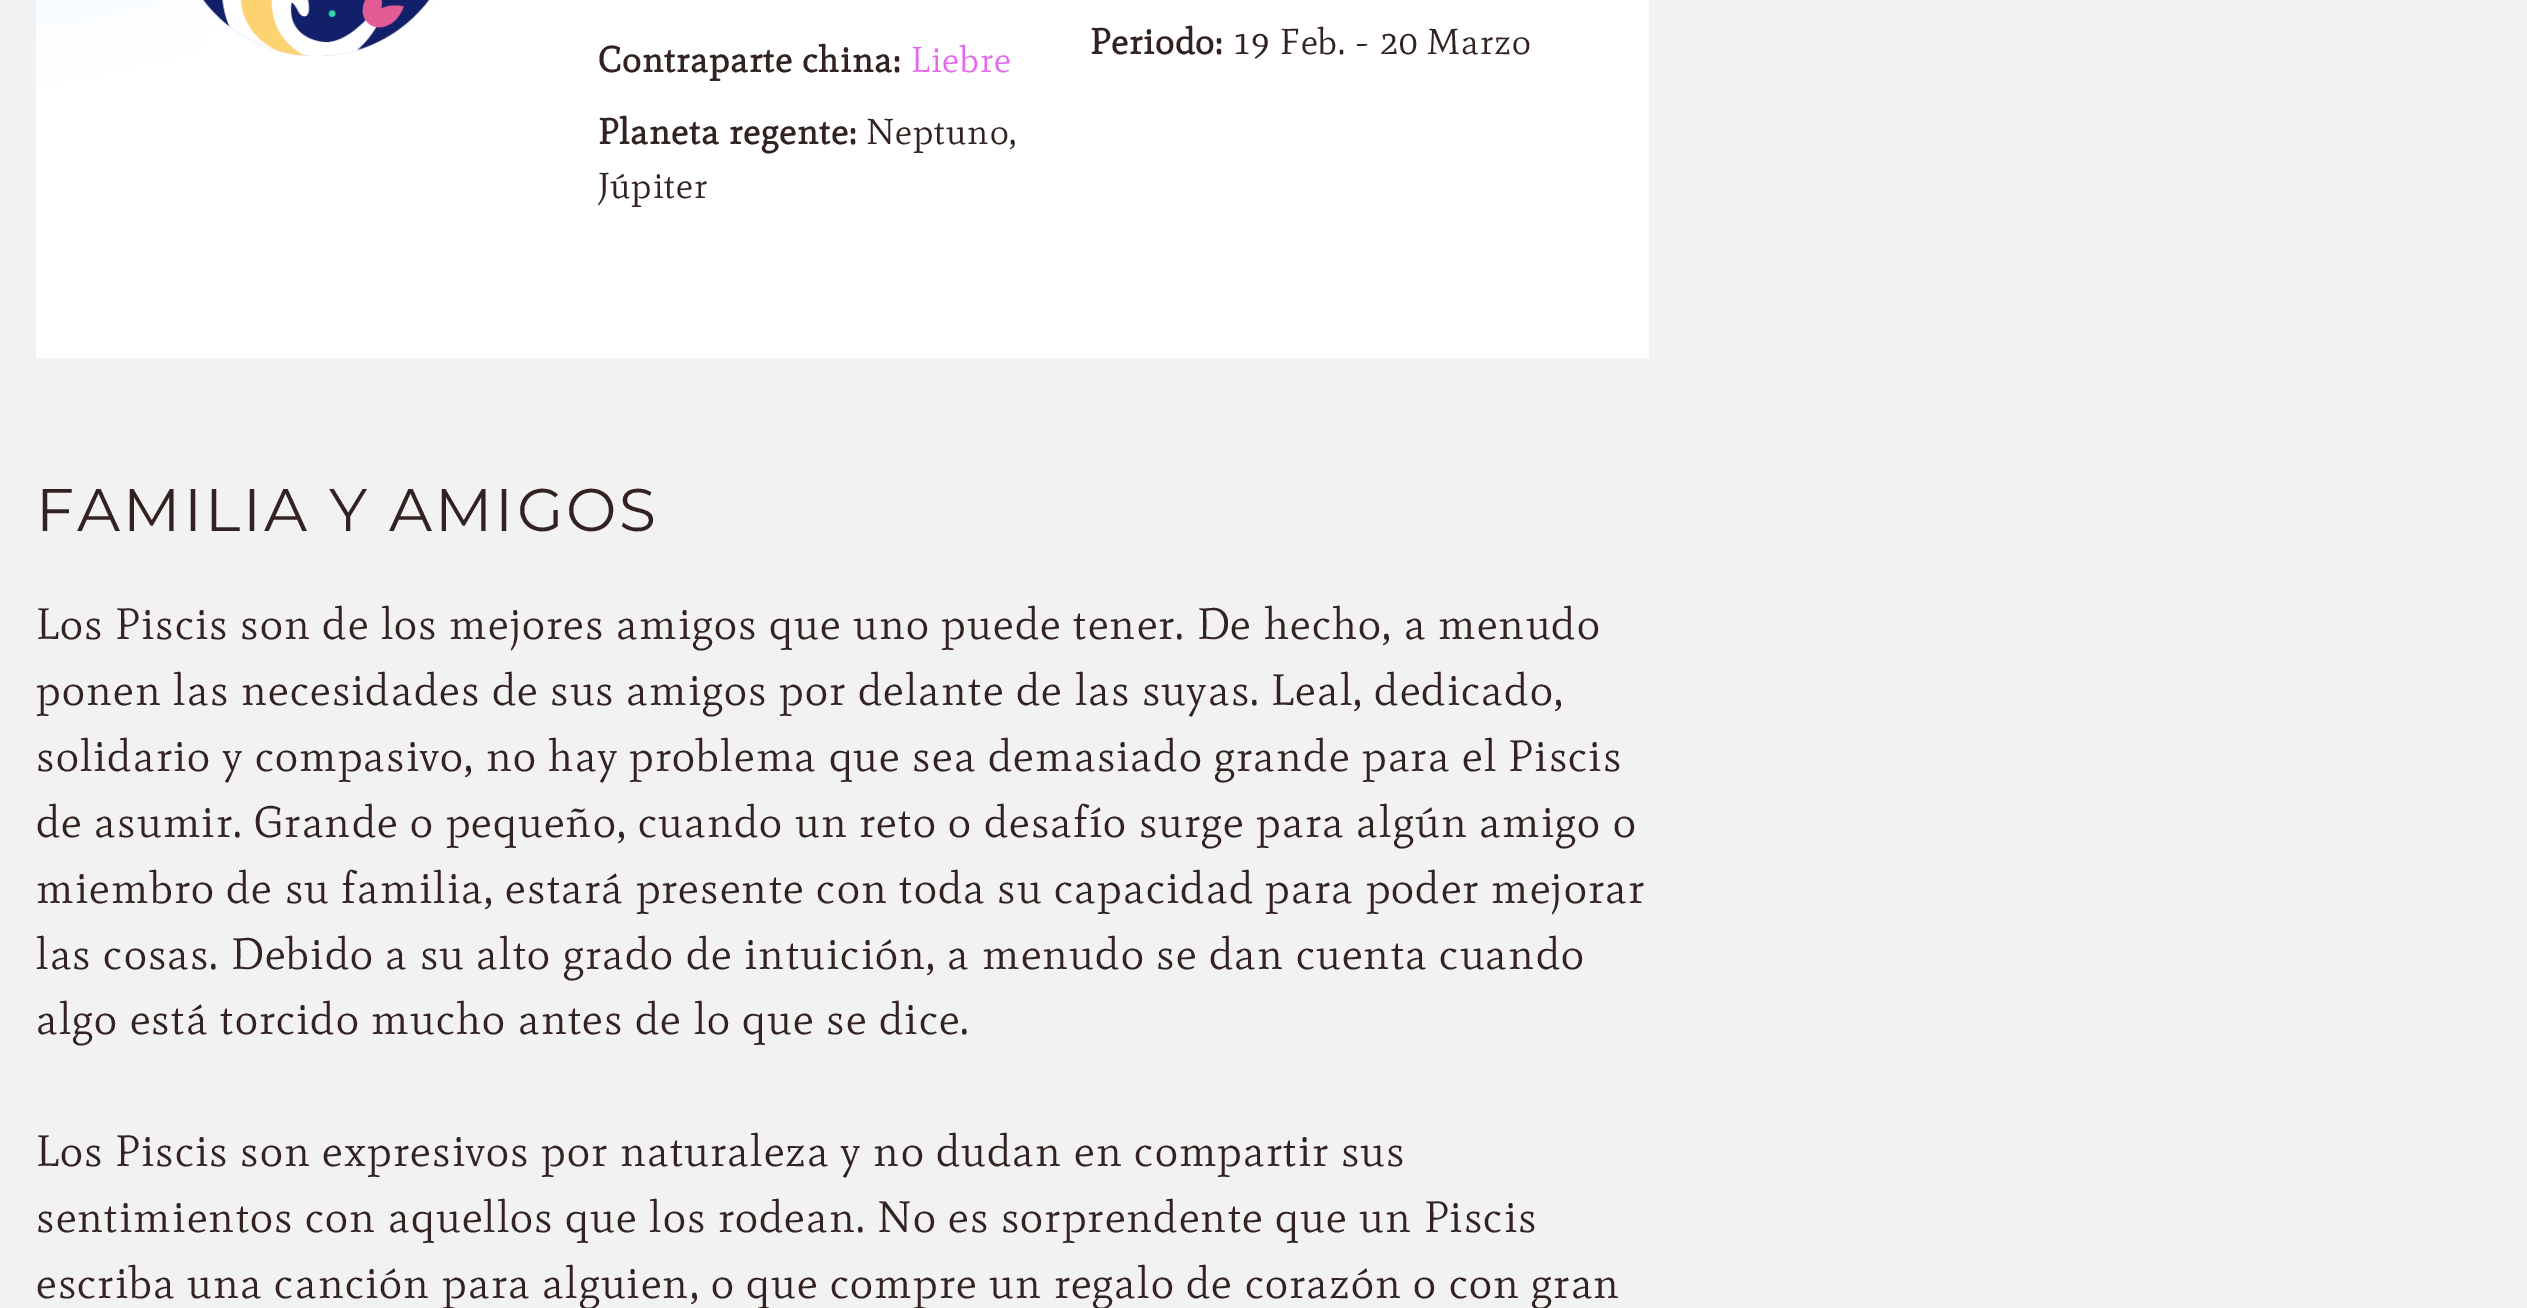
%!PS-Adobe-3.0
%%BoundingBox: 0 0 2527 1308
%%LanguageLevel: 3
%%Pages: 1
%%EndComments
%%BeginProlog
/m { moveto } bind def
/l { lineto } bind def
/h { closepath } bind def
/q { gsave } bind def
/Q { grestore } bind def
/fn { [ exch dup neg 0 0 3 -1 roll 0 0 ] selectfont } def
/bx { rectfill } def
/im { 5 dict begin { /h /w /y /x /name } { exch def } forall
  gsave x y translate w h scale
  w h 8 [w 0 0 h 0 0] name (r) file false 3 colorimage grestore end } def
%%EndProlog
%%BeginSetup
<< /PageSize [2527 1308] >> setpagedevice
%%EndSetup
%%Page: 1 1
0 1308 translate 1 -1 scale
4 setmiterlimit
0.953 0.949 0.949 setrgbcolor
0 0 2527 1308 bx
q 36 0 m 1649 0 l 1649 358 l 36 358 l h clip newpath
<< /ShadingType 2 /ColorSpace /DeviceRGB /Coords [693 -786 967 503] /Extend [true true] /Function << /FunctionType 3 /Domain [0 1] /Functions [<< /FunctionType 2 /Domain [0 1] /C0 [0.82 0.941 0.988] /C1 [1 1 1] /N 1 >> << /FunctionType 2 /Domain [0 1] /C0 [1 1 1] /C1 [1 1 1] /N 1 >>] /Bounds [0.55] /Encode [0 1 0 1] >> >> shfill Q
(image0.raw) 202 0 228 56 im
/Mate-Bold 36 fn
0.196 0.137 0.133 setrgbcolor
598 72 m 0.9 0 (Contraparte china:) ashow
/Mate-Regular 36 fn
0.89 0.416 0.933 setrgbcolor
911 72 m 0.9 0 (Liebre) ashow
/Mate-Bold 36 fn
0.196 0.137 0.133 setrgbcolor
1090 54 m 0.9 0 (Periodo:) ashow
/Mate-Regular 36 fn
1232 54 m 0.9 0 (19 Feb. - 20 Marzo) ashow
/Mate-Bold 36 fn
598 144 m 0.9 0 (Planeta regente:) ashow
/Mate-Regular 36 fn
866 144 m 0.9 0 (Neptuno,) ashow
598 198 m 0.9 0 (Júpiter) ashow
/Montserrat-Regular 60.1 fn
36 531 m 3 0 (FAMILIA Y AMIGOS) ashow
/Mate-Regular 43.9 fn
36 639 m 1.1 0 (Los Piscis son de los mejores amigos que uno puede tener. De hecho, a menudo) ashow
36 705 m 1.1 0 (ponen las necesidades de sus amigos por delante de las suyas. Leal, dedicado,) ashow
36 771 m 1.1 0 (solidario y compasivo, no hay problema que sea demasiado grande para el Piscis) ashow
36 837 m 1.1 0 (de asumir. Grande o pequeño, cuando un reto o desafío surge para algún amigo o) ashow
36 903 m 1.1 0 (miembro de su familia, estará presente con toda su capacidad para poder mejorar) ashow
36 969 m 1.1 0 (las cosas. Debido a su alto grado de intuición, a menudo se dan cuenta cuando) ashow
36 1034 m 1.1 0 (algo está torcido mucho antes de lo que se dice.) ashow
36 1166 m 1.1 0 (Los Piscis son expresivos por naturaleza y no dudan en compartir sus) ashow
36 1232 m 1.1 0 (sentimientos con aquellos que los rodean. No es sorprendente que un Piscis) ashow
36 1298 m 1.1 0 (escriba una canción para alguien, o que compre un regalo de corazón o con gran) ashow
showpage
%%EOF
